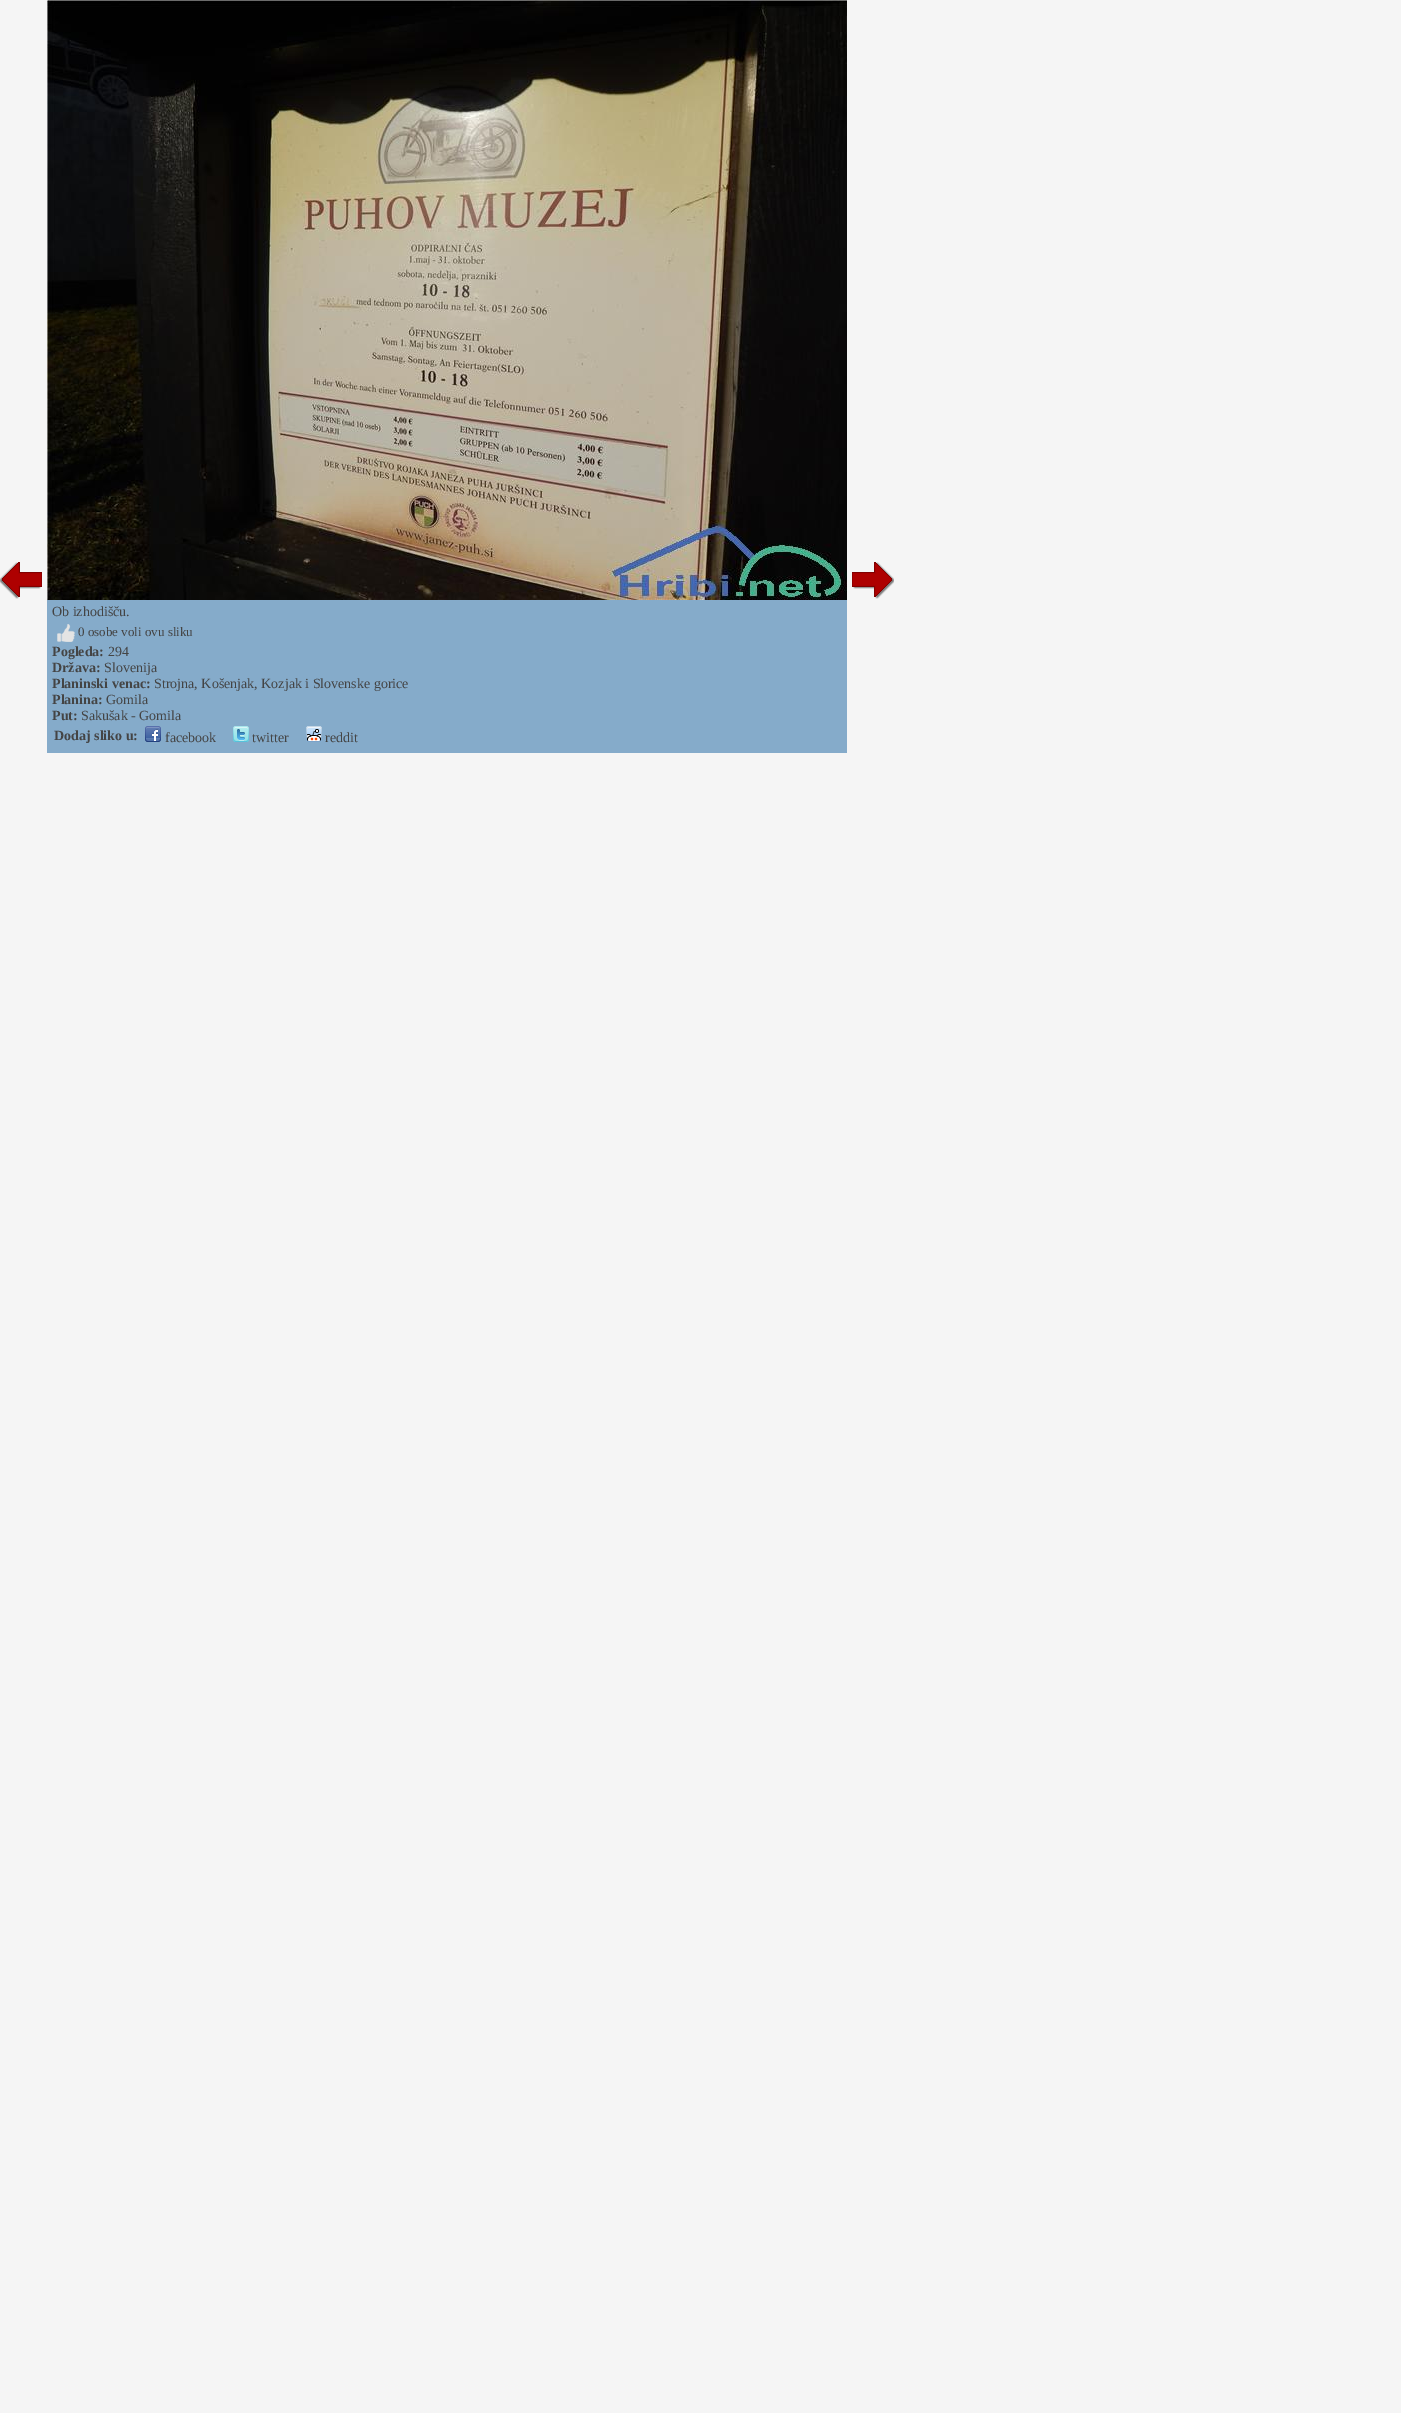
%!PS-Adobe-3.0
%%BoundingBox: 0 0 1401 2413
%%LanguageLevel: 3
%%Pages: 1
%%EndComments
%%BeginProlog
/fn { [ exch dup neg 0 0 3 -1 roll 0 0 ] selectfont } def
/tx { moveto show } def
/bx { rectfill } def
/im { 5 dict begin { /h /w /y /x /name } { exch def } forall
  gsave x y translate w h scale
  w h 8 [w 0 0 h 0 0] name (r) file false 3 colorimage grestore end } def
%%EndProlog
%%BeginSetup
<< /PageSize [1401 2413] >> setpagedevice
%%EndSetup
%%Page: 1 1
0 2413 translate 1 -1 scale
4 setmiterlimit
0.961 setgray
0 0 1401 2413 bx
(image0.raw) 0 562 42 37 im
(image1.raw) 852 562 42 37 im
0.522 0.671 0.792 setrgbcolor
47 600 800 153 bx
(image2.raw) 47 0 800 600 im
/LiberationSerif-Regular 14 fn
0.267 setgray
(Ob izhodišču.) 52 616 tx
(image3.raw) 57 624 18 18 im
/LiberationSerif-Regular 13 fn
(0 osobe voli ovu sliku) 78 636 tx
/LiberationSerif-Bold 14 fn
(Pogleda:) 52 656 tx
/LiberationSerif-Regular 14 fn
(294) 108 656 tx
/LiberationSerif-Bold 14 fn
(Država:) 52 672 tx
/LiberationSerif-Regular 14 fn
(Slovenija) 104 672 tx
/LiberationSerif-Bold 14 fn
(Planinski venac:) 52 688 tx
/LiberationSerif-Regular 14 fn
(Strojna, Košenjak, Kozjak i Slovenske gorice) 154 688 tx
/LiberationSerif-Bold 14 fn
(Planina:) 52 704 tx
/LiberationSerif-Regular 14 fn
(Gomila) 106 704 tx
/LiberationSerif-Bold 14 fn
(Put:) 52 720 tx
/LiberationSerif-Regular 14 fn
(Sakušak - Gomila) 81 720 tx
/LiberationSerif-Bold 14 fn
(Dodaj sliko u:) 54 740 tx
(image4.raw) 145 726 16 16 im
/LiberationSerif-Regular 14 fn
(facebook) 165 742 tx
(image5.raw) 233 726 16 16 im
(twitter) 252 742 tx
(image6.raw) 306 726 16 16 im
(reddit) 325 742 tx
showpage
%%EOF
